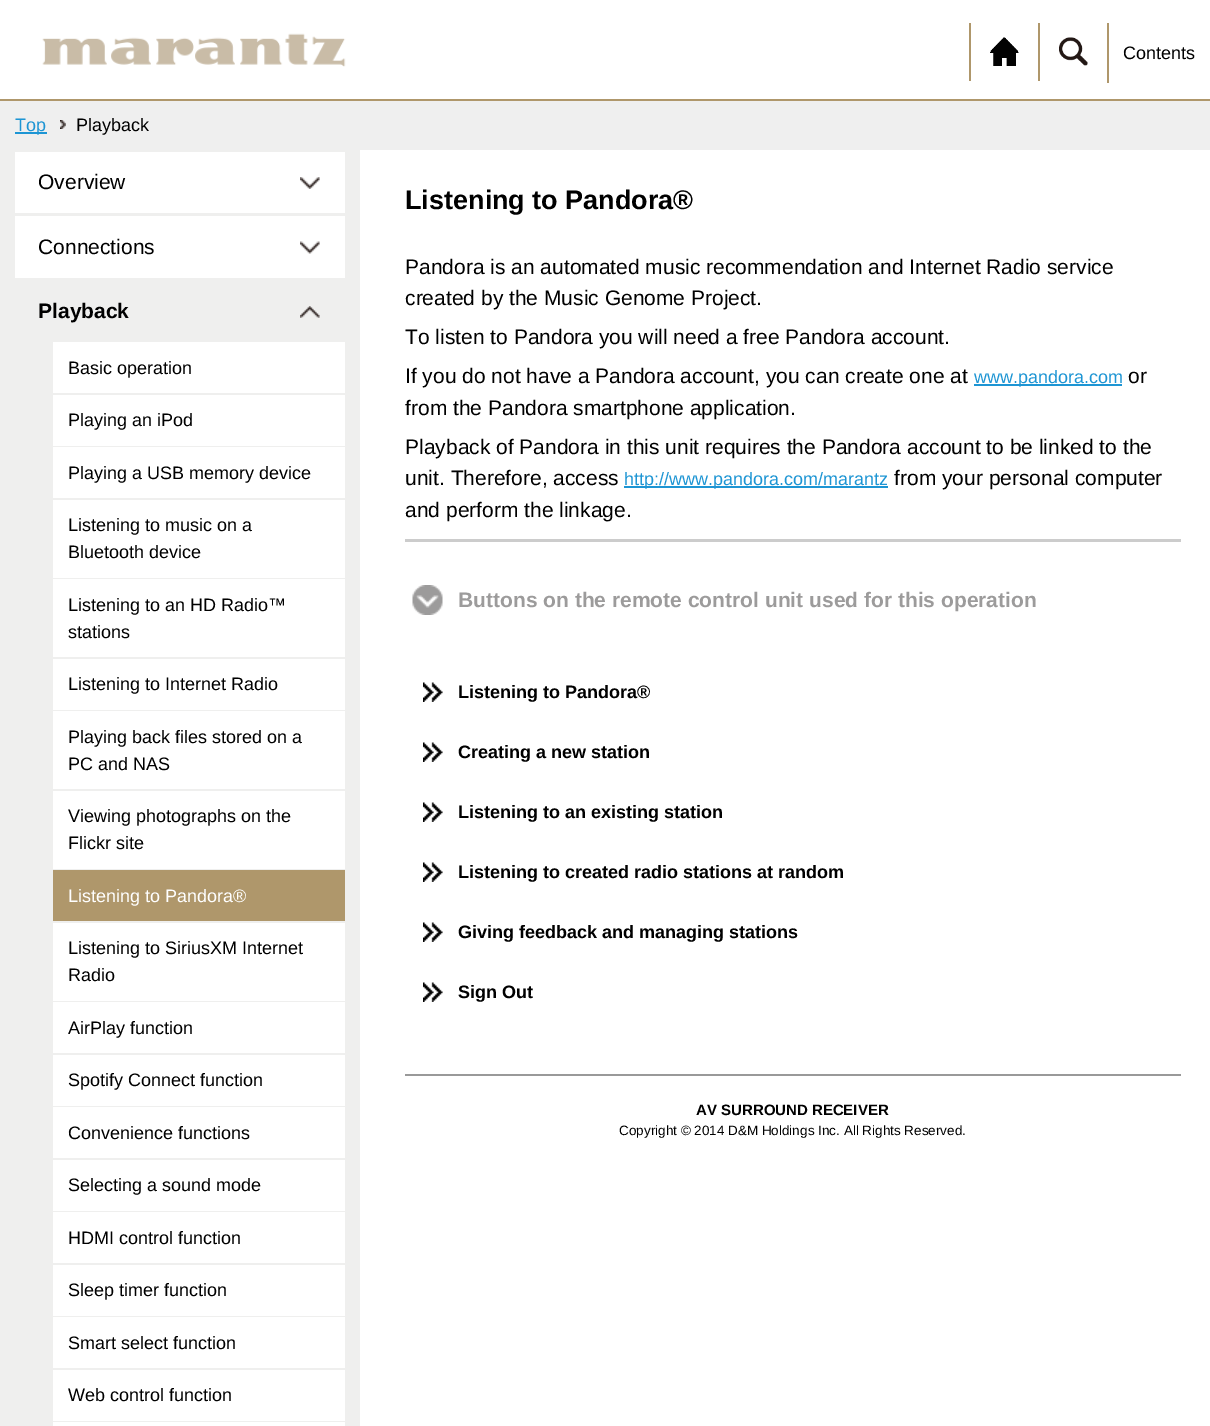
%!PS-Adobe-3.0
%%BoundingBox: 0 0 1210 1426
%%LanguageLevel: 3
%%Pages: 1
%%EndComments
%%BeginProlog
/fn { [ exch dup neg 0 0 3 -1 roll 0 0 ] selectfont } def
/tx { moveto show } def
/bx { rectfill } def
/im { 5 dict begin { /h /w /y /x /name } { exch def } forall
  gsave x y translate w h scale
  w h 8 [w 0 0 h 0 0] name (r) file false 3 colorimage grestore end } def
%%EndProlog
%%BeginSetup
<< /PageSize [1210 1426] >> setpagedevice
%%EndSetup
%%Page: 1 1
0 1426 translate 1 -1 scale
4 setmiterlimit
1 setgray
0 0 1210 1426 bx
0.937 0.937 0.933 setrgbcolor
0 150 360 1276 bx
(image0.raw) 42 33 304 34 im
(image1.raw) 990 37 29 29 im
0.686 0.592 0.42 setrgbcolor
969 23 2 58 bx
(image2.raw) 1059 37 29 29 im
1038 23 2 58 bx
1107 23 2 60 bx
/LiberationSans-Regular 18 fn
0 setgray
(Contents) 1123 59 tx
0.937 setgray
0 101 1210 49 bx
0.686 0.592 0.42 setrgbcolor
0 99 1210 2 bx
(image3.raw) 60 120 6 9 im
0.114 0.584 0.831 setrgbcolor
15 132 32 2 bx
(Top) 15 131 tx
0 setgray
(Playback) 76 131 tx
1 setgray
15 152 330 61 bx
(image4.raw) 300 177 20 12 im
/LiberationSans-Regular 21 fn
0 setgray
(Overview) 38 189 tx
1 setgray
15 216 330 62 bx
(image5.raw) 300 241 20 13 im
0 setgray
(Connections) 38 254 tx
(image6.raw) 300 306 20 12 im
/LiberationSans-Bold 21 fn
(Playback) 38 318 tx
1 setgray
53 342 292 51 bx
/LiberationSans-Regular 18 fn
0 setgray
(Basic operation) 68 374 tx
1 setgray
53 395 292 51 bx
0 setgray
(Playing an iPod) 68 426 tx
1 setgray
53 447 292 51 bx
0 setgray
(Playing a USB memory device) 68 479 tx
1 setgray
53 500 292 78 bx
0 setgray
(Listening to music on a) 68 531 tx
(Bluetooth device) 68 558 tx
1 setgray
53 579 292 78 bx
0 setgray
(Listening to an HD Radio™) 68 611 tx
(stations) 68 638 tx
1 setgray
53 659 292 51 bx
0 setgray
(Listening to Internet Radio) 68 690 tx
1 setgray
53 711 292 78 bx
0 setgray
(Playing back files stored on a) 68 743 tx
(PC and NAS) 68 770 tx
1 setgray
53 791 292 78 bx
0 setgray
(Viewing photographs on the) 68 822 tx
(Flickr site) 68 849 tx
0.686 0.592 0.42 setrgbcolor
53 870 292 51 bx
1 setgray
(Listening to Pandora®) 68 902 tx
53 923 292 78 bx
0 setgray
(Listening to SiriusXM Internet) 68 954 tx
(Radio) 68 981 tx
1 setgray
53 1002 292 51 bx
0 setgray
(AirPlay function) 68 1034 tx
1 setgray
53 1055 292 51 bx
0 setgray
(Spotify Connect function) 68 1086 tx
1 setgray
53 1107 292 51 bx
0 setgray
(Convenience functions) 68 1139 tx
1 setgray
53 1160 292 51 bx
0 setgray
(Selecting a sound mode) 68 1191 tx
1 setgray
53 1212 292 51 bx
0 setgray
(HDMI control function) 68 1244 tx
1 setgray
53 1265 292 51 bx
0 setgray
(Sleep timer function) 68 1296 tx
1 setgray
53 1317 292 51 bx
0 setgray
(Smart select function) 68 1349 tx
1 setgray
53 1370 292 51 bx
0 setgray
(Web control function) 68 1401 tx
1 setgray
53 1422 292 4 bx
/LiberationSans-Bold 27 fn
0 setgray
(Listening to Pandora®) 405 209 tx
/LiberationSans-Regular 21 fn
(Pandora is an automated music recommendation and Internet Radio service) 405 274 tx
(created by the Music Genome Project.) 405 305 tx
(To listen to Pandora you will need a free Pandora account.) 405 344 tx
(If you do not have a Pandora account, you can create one at) 405 383 tx
0.114 0.584 0.831 setrgbcolor
974 384 148 2 bx
/LiberationSans-Regular 18 fn
(www.pandora.com) 974 383 tx
/LiberationSans-Regular 21 fn
0 setgray
(or) 1128 383 tx
(from the Pandora smartphone application.) 405 415 tx
(Playback of Pandora in this unit requires the Pandora account to be linked to the) 405 454 tx
(unit. Therefore, access) 405 485 tx
0.114 0.584 0.831 setrgbcolor
624 486 264 2 bx
/LiberationSans-Regular 18 fn
(http://www.pandora.com/marantz) 624 485 tx
/LiberationSans-Regular 21 fn
0 setgray
(from your personal computer) 894 485 tx
(and perform the linkage.) 405 517 tx
0.8 setgray
405 539 776 3 bx
(image7.raw) 412 585 31 30 im
/LiberationSans-Bold 21 fn
0.612 0.608 0.608 setrgbcolor
(Buttons on the remote control unit used for this operation) 458 607 tx
(image8.raw) 423 682 20 20 im
/LiberationSans-Bold 18 fn
0 setgray
(Listening to Pandora®) 458 698 tx
(image8.raw) 423 742 20 20 im
(Creating a new station) 458 758 tx
(image8.raw) 423 802 20 20 im
(Listening to an existing station) 458 818 tx
(image8.raw) 423 862 20 20 im
(Listening to created radio stations at random) 458 878 tx
(image8.raw) 423 922 20 20 im
(Giving feedback and managing stations) 458 938 tx
(image8.raw) 423 982 20 20 im
(Sign Out) 458 998 tx
0.6 setgray
405 1074 776 2 bx
/LiberationSans-Bold 15 fn
0 setgray
(AV SURROUND RECEIVER) 696 1115 tx
/LiberationSans-Regular 13.5 fn
(Copyright © 2014 D&M Holdings Inc. All Rights Reserved.) 619 1135 tx
showpage
%%EOF
